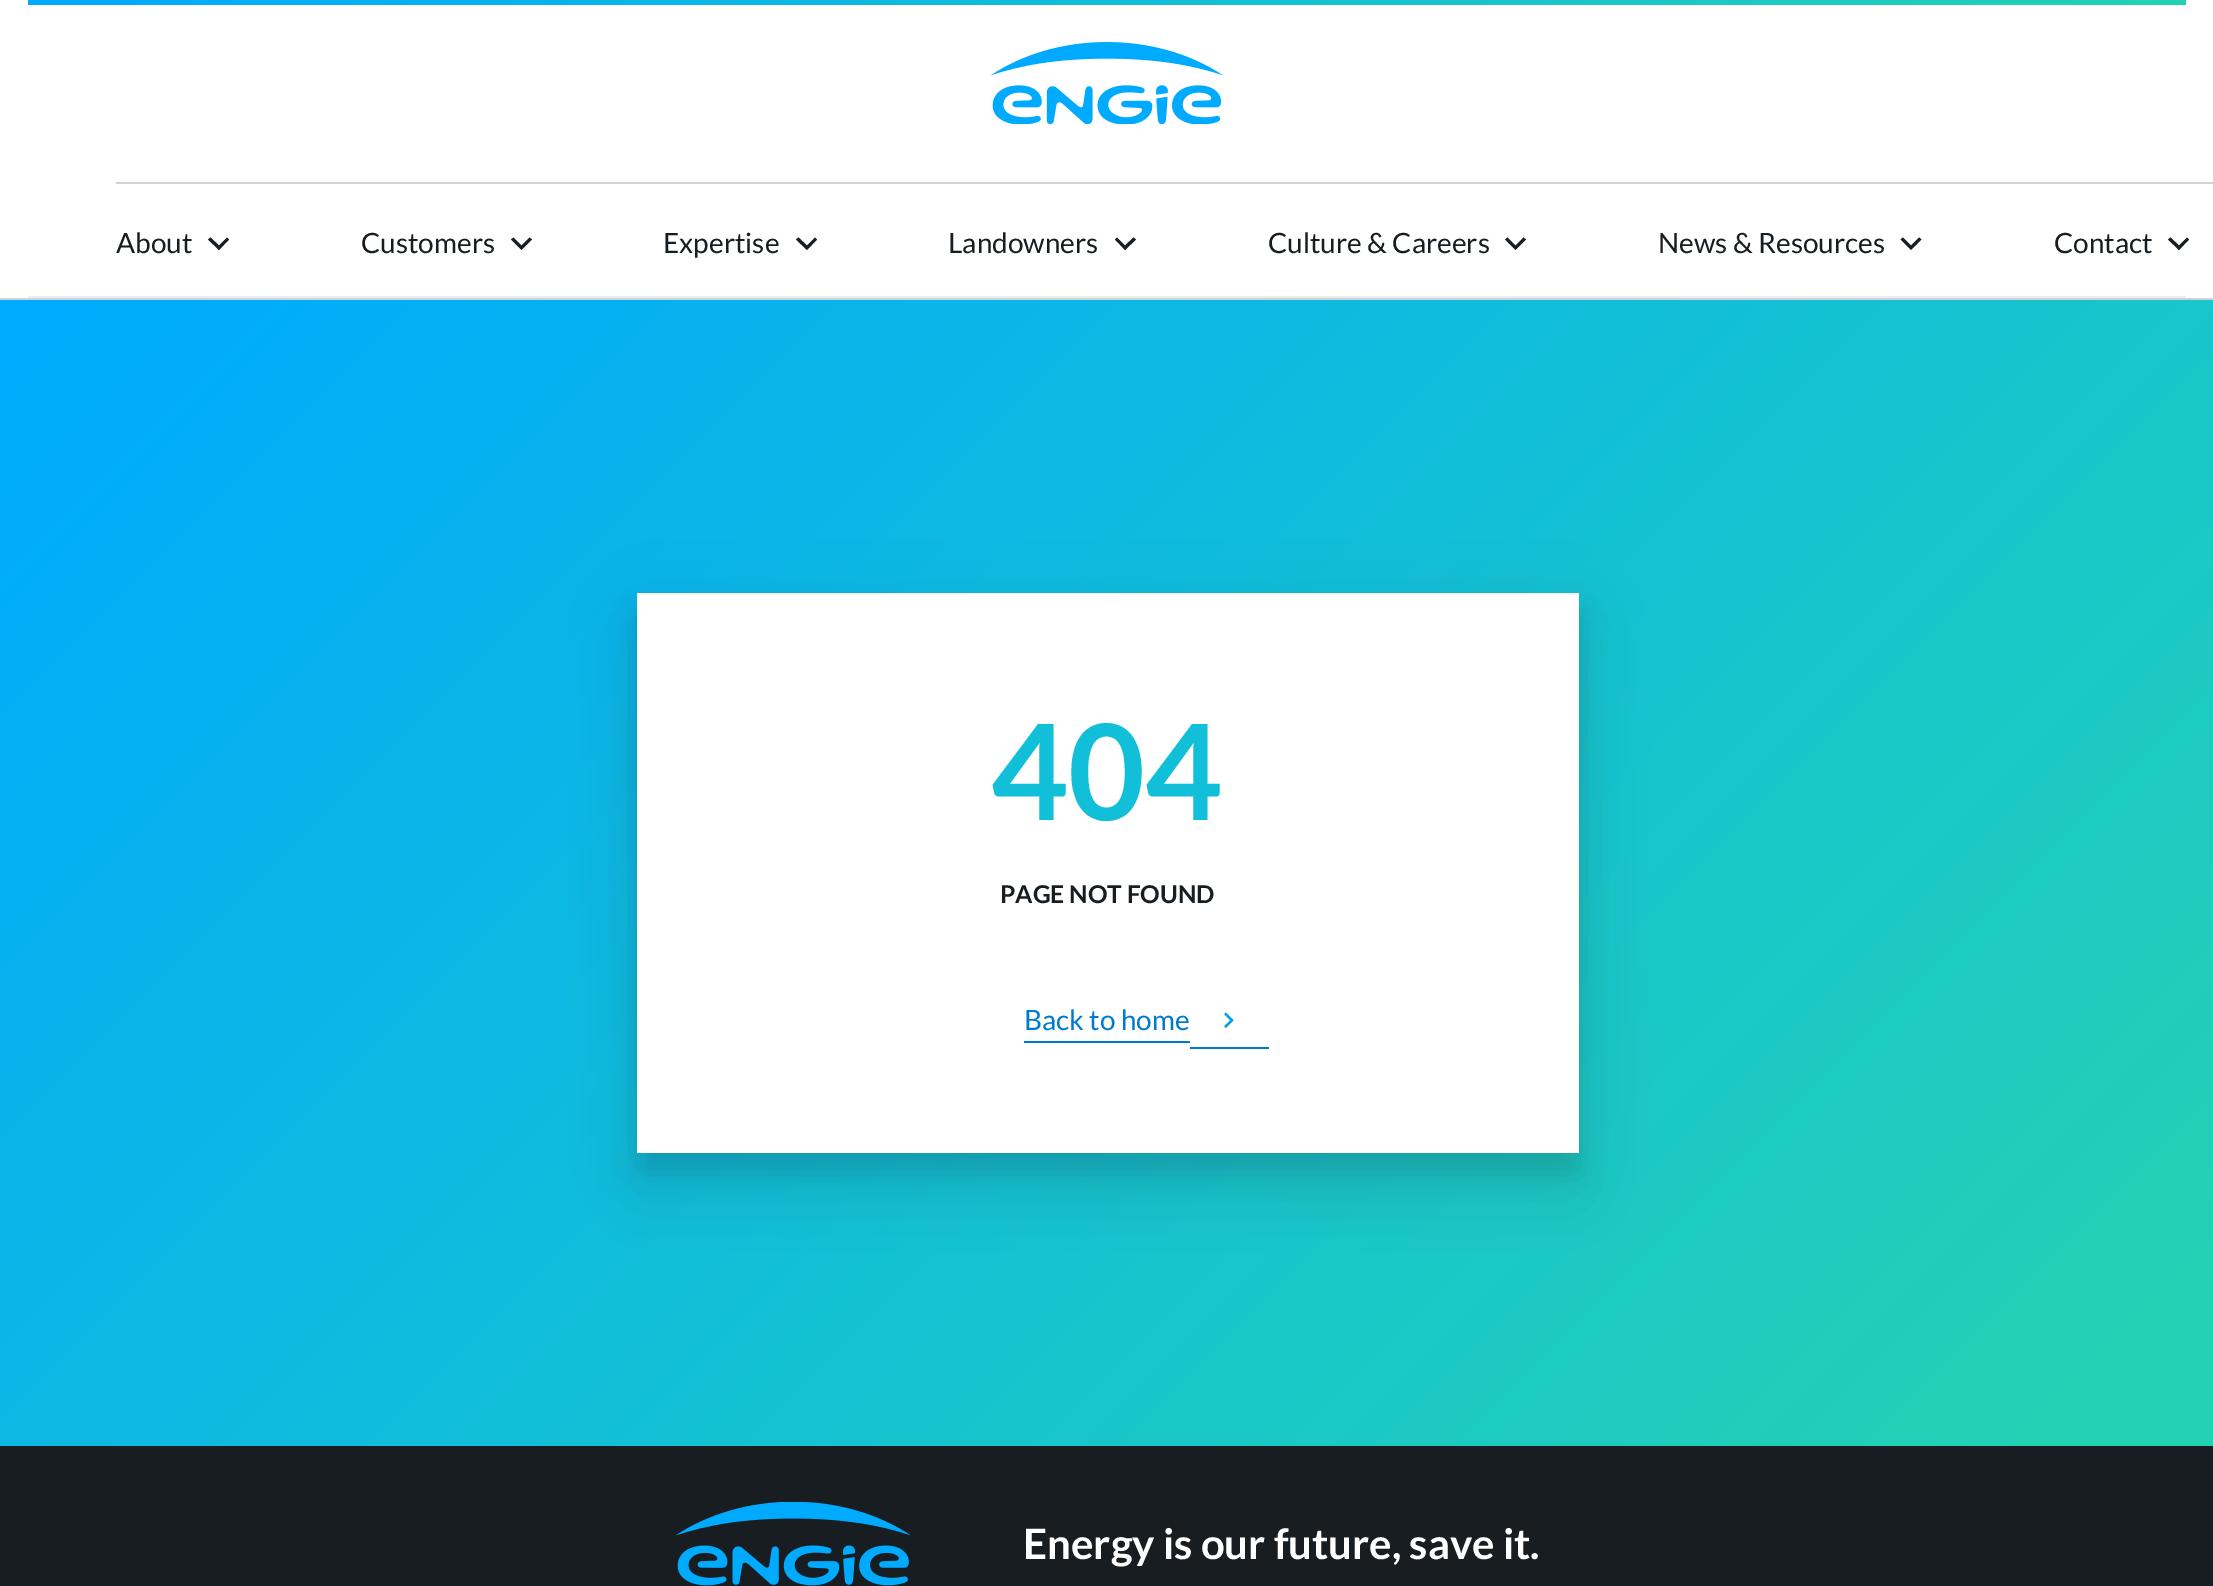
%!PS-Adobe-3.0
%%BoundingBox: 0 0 2213 1586
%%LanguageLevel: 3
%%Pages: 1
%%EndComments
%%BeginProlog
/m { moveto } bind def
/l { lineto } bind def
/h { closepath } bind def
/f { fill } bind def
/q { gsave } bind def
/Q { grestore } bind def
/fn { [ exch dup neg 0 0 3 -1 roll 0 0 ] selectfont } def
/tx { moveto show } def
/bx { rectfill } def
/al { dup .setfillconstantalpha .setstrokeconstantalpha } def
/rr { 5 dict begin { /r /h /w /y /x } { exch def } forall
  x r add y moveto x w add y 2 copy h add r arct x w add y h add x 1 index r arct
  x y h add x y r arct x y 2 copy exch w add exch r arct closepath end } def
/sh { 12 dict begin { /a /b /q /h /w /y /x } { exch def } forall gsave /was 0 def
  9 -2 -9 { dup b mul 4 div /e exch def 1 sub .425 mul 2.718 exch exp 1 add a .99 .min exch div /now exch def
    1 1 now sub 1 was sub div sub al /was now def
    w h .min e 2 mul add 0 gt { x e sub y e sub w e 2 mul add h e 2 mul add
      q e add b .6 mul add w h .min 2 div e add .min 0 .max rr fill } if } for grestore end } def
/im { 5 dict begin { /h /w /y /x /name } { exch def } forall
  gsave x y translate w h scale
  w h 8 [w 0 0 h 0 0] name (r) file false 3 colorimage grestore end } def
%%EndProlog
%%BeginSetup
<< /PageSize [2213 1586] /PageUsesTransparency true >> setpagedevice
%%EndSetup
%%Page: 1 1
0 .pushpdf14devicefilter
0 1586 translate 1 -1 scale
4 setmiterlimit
1 setgray
0 0 2213 1586 bx
0.8 0.831 0.855 setrgbcolor
0 298 2213 2 bx
0.922 0.933 0.945 setrgbcolor
28 296 2158 2 bx
q 28 0 m 2186 0 l 2186 5 l 28 5 l h clip newpath
<< /ShadingType 2 /ColorSpace /DeviceRGB /Coords [28 2.6 2186 2.6] /Extend [true true] /Function << /FunctionType 2 /Domain [0 1] /C0 [0 0.667 1] /C1 [0.137 0.824 0.71] /N 1 >> >> shfill Q
(image0.raw) 991 42 232 82 im
0.8 0.831 0.855 setrgbcolor
116 182 2097 2 bx
/Lato-Regular 28 fn
0.09 0.114 0.129 setrgbcolor
(About) 116 253 tx
210.5 237.5 m 219 245.5 l 227 237.5 l 229 239.5 l 219 250 l 208 239.5 l h f
(Customers) 361 253 tx
513.5 237.5 m 521.5 245.5 l 529.5 237.5 l 532 239.5 l 521.5 250 l 511 239.5 l h f
(Expertise) 663 253 tx
798.5 237.5 m 807 245.5 l 815 237.5 l 817 239.5 l 807 250 l 796 239.5 l h f
(Landowners) 948 253 tx
1117 237.5 m 1125 245.5 l 1133.5 237.5 l 1136 239.5 l 1125 250 l 1115 239.5 l h f
(Culture & Careers) 1268 253 tx
1507.5 237.5 m 1515.5 245.5 l 1523.5 237.5 l 1526 239.5 l 1515.5 250 l 1505 239.5 l h f
(News & Resources) 1658 253 tx
1903 237.5 m 1911 245.5 l 1919 237.5 l 1921.5 239.5 l 1911 250 l 1900.5 239.5 l h f
(Contact) 2054 253 tx
2170.5 237.5 m 2179 245.5 l 2187 237.5 l 2189 239.5 l 2179 250 l 2168 239.5 l h f
q 0 300 m 2213 300 l 2213 1446 l 0 1446 l h clip newpath
<< /ShadingType 2 /ColorSpace /DeviceRGB /Coords [267 32 1947 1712] /Extend [true true] /Function << /FunctionType 3 /Domain [0 1] /Functions [<< /FunctionType 2 /Domain [0 1] /C0 [0 0.667 1] /C1 [0 0.667 1] /N 1 >> << /FunctionType 2 /Domain [0 1] /C0 [0 0.667 1] /C1 [0.137 0.824 0.71] /N 1 >> << /FunctionType 2 /Domain [0 1] /C0 [0.137 0.824 0.71] /C1 [0.137 0.824 0.71] /N 1 >>] /Bounds [0.01 0.94] /Encode [0 1 0 1 0 1] >> >> shfill Q
0 setgray
637 613 942 560 0 13 0.1 sh
637 635 942 560 0 33 0.06 sh
637 609 942 560 0 40 0.06 sh
1 setgray
637 593 942 560 bx
/Lato-Bold 133 fn
0.071 0.749 0.847 setrgbcolor
(404) 991 820 tx
/Lato-Bold 24.5 fn
0.09 0.114 0.129 setrgbcolor
(PAGE NOT FOUND) 1000 903 tx
0 0.478 0.804 setrgbcolor
1024 1041 166 2 bx
1190 1047 79 2 bx
/Lato-Regular 28 fn
(Back to home) 1024 1030 tx
(image1.raw) 1224 1012 10 16 im
0.09 0.114 0.129 setrgbcolor
0 1446 2213 140 bx
(image2.raw) 676 1502 234 84 im
/Lato-Bold 42 fn
1 setgray
(Energy is our future, save it.) 1023 1559 tx
.poppdf14devicefilter showpage
%%EOF
